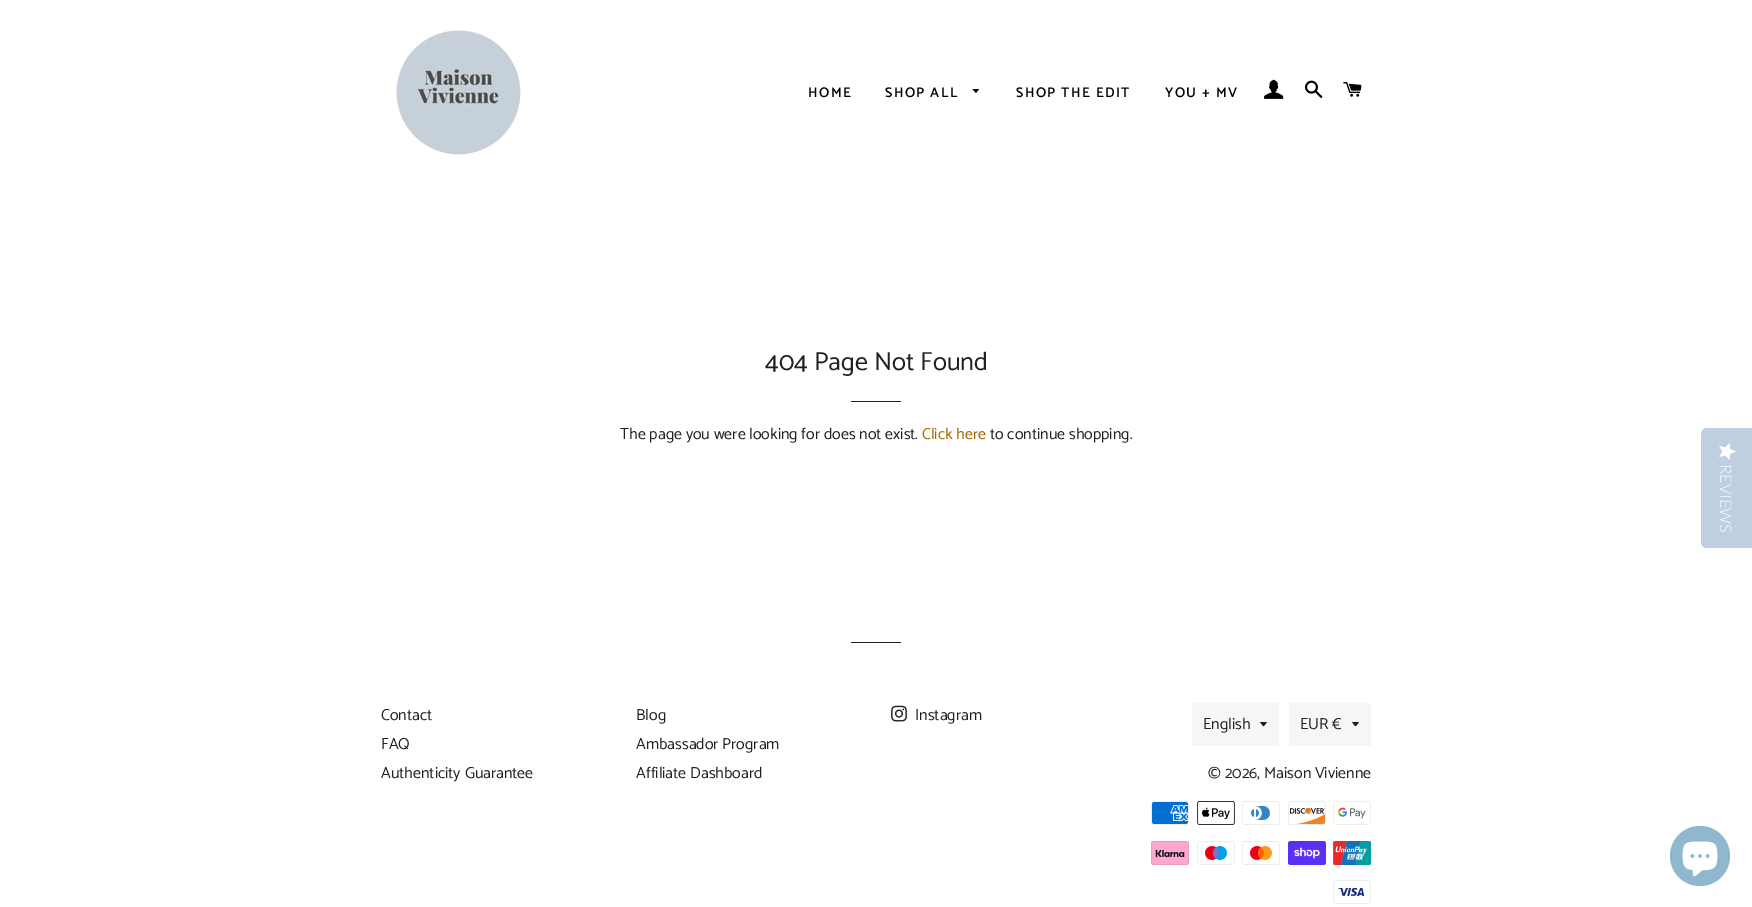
%!PS-Adobe-3.0
%%BoundingBox: 0 0 1752 907
%%LanguageLevel: 3
%%Pages: 1
%%EndComments
%%BeginProlog
/m { moveto } bind def
/l { lineto } bind def
/c { curveto } bind def
/h { closepath } bind def
/f { fill } bind def
/q { gsave } bind def
/Q { grestore } bind def
/fn { [ exch dup neg 0 0 3 -1 roll 0 0 ] selectfont } def
/tx { moveto show } def
/bx { rectfill } def
/ci { newpath 0 360 arc closepath } def
/im { 5 dict begin { /h /w /y /x /name } { exch def } forall
  gsave x y translate w h scale
  w h 8 [w 0 0 h 0 0] name (r) file false 3 colorimage grestore end } def
%%EndProlog
%%BeginSetup
<< /PageSize [1752 907] >> setpagedevice
%%EndSetup
%%Page: 1 1
0 907 translate 1 -1 scale
4 setmiterlimit
1 setgray
0 0 1752 907 bx
(image0.raw) 396 30 125 125 im
/Catamaran-SemiBold 14 fn
0 setgray
808 97 m 1.4 0 (HOME) ashow
885 97 m 1.4 0 (SHOP ALL) ashow
972.5 89 m 976 93 l 979 89 l h f
1016 97 m 1.4 0 (SHOP THE EDIT) ashow
1165 97 m 1.4 0 (YOU + MV) ashow
(image1.raw) 1264 79 20 20 im
(image2.raw) 1305 80 18 18 im
(image3.raw) 1343 82 19 15 im
/Catamaran-Regular 26 fn
0.122 0.125 0.129 setrgbcolor
(404 Page Not Found) 765 370 tx
851 401 50 1 bx
/Catamaran-Regular 16 fn
(The page you were looking for does not exist.) 620 439 tx
0.647 0.4 0 setrgbcolor
(Click here) 922 439 tx
0.122 0.125 0.129 setrgbcolor
(to continue shopping.) 990 439 tx
851 642 50 1 bx
(Contact) 381 720 tx
(FAQ) 381 749 tx
(Authenticity Guarantee) 381 778 tx
(Blog) 636 720 tx
(Ambassador Program) 636 749 tx
(Affiliate Dashboard) 636 778 tx
(image4.raw) 891 705 16 17 im
(Instagram) 915 720 tx
0.965 setgray
1192 703 87 43 bx
0.122 0.125 0.129 setrgbcolor
1260 722 m 1264.5 727.5 1262.5 727.5 1267 722 c h f
(English) 1203 729 tx
0.965 setgray
1289 703 82 43 bx
0.122 0.125 0.129 setrgbcolor
1352 722 m 1356.5 727.5 1354.5 727.5 1359 722 c h f
(EUR €) 1300 729 tx
(© 2026, Maison Vivienne) 1208 778 tx
(image5.raw) 1151 801 38 24 im
(image6.raw) 1197 801 38 24 im
(image7.raw) 1242 801 38 24 im
(image8.raw) 1288 801 38 24 im
(image9.raw) 1333 801 38 24 im
(image10.raw) 1151 841 38 24 im
(image11.raw) 1197 841 38 24 im
(image12.raw) 1242 841 38 24 im
(image13.raw) 1288 841 38 24 im
(image14.raw) 1333 841 38 24 im
(image15.raw) 1333 880 38 24 im
0.749 0.808 0.882 setrgbcolor
1752 428 m 1752 548 l 1707 548 l 1704 548 1701 546 1701 542 c 1701 434 l 1701 431 1704 428 1707 428 c h f
(image16.raw) 1719 443 17 17 im
/Lato-Light 16 fn
1 setgray
q 1720 464 translate 90 rotate 0 0 m (REVIEWS) show Q
0.561 0.722 0.808 setrgbcolor
1700 856 30 ci f
(image17.raw) 1682 841 36 36 im
showpage
%%EOF
